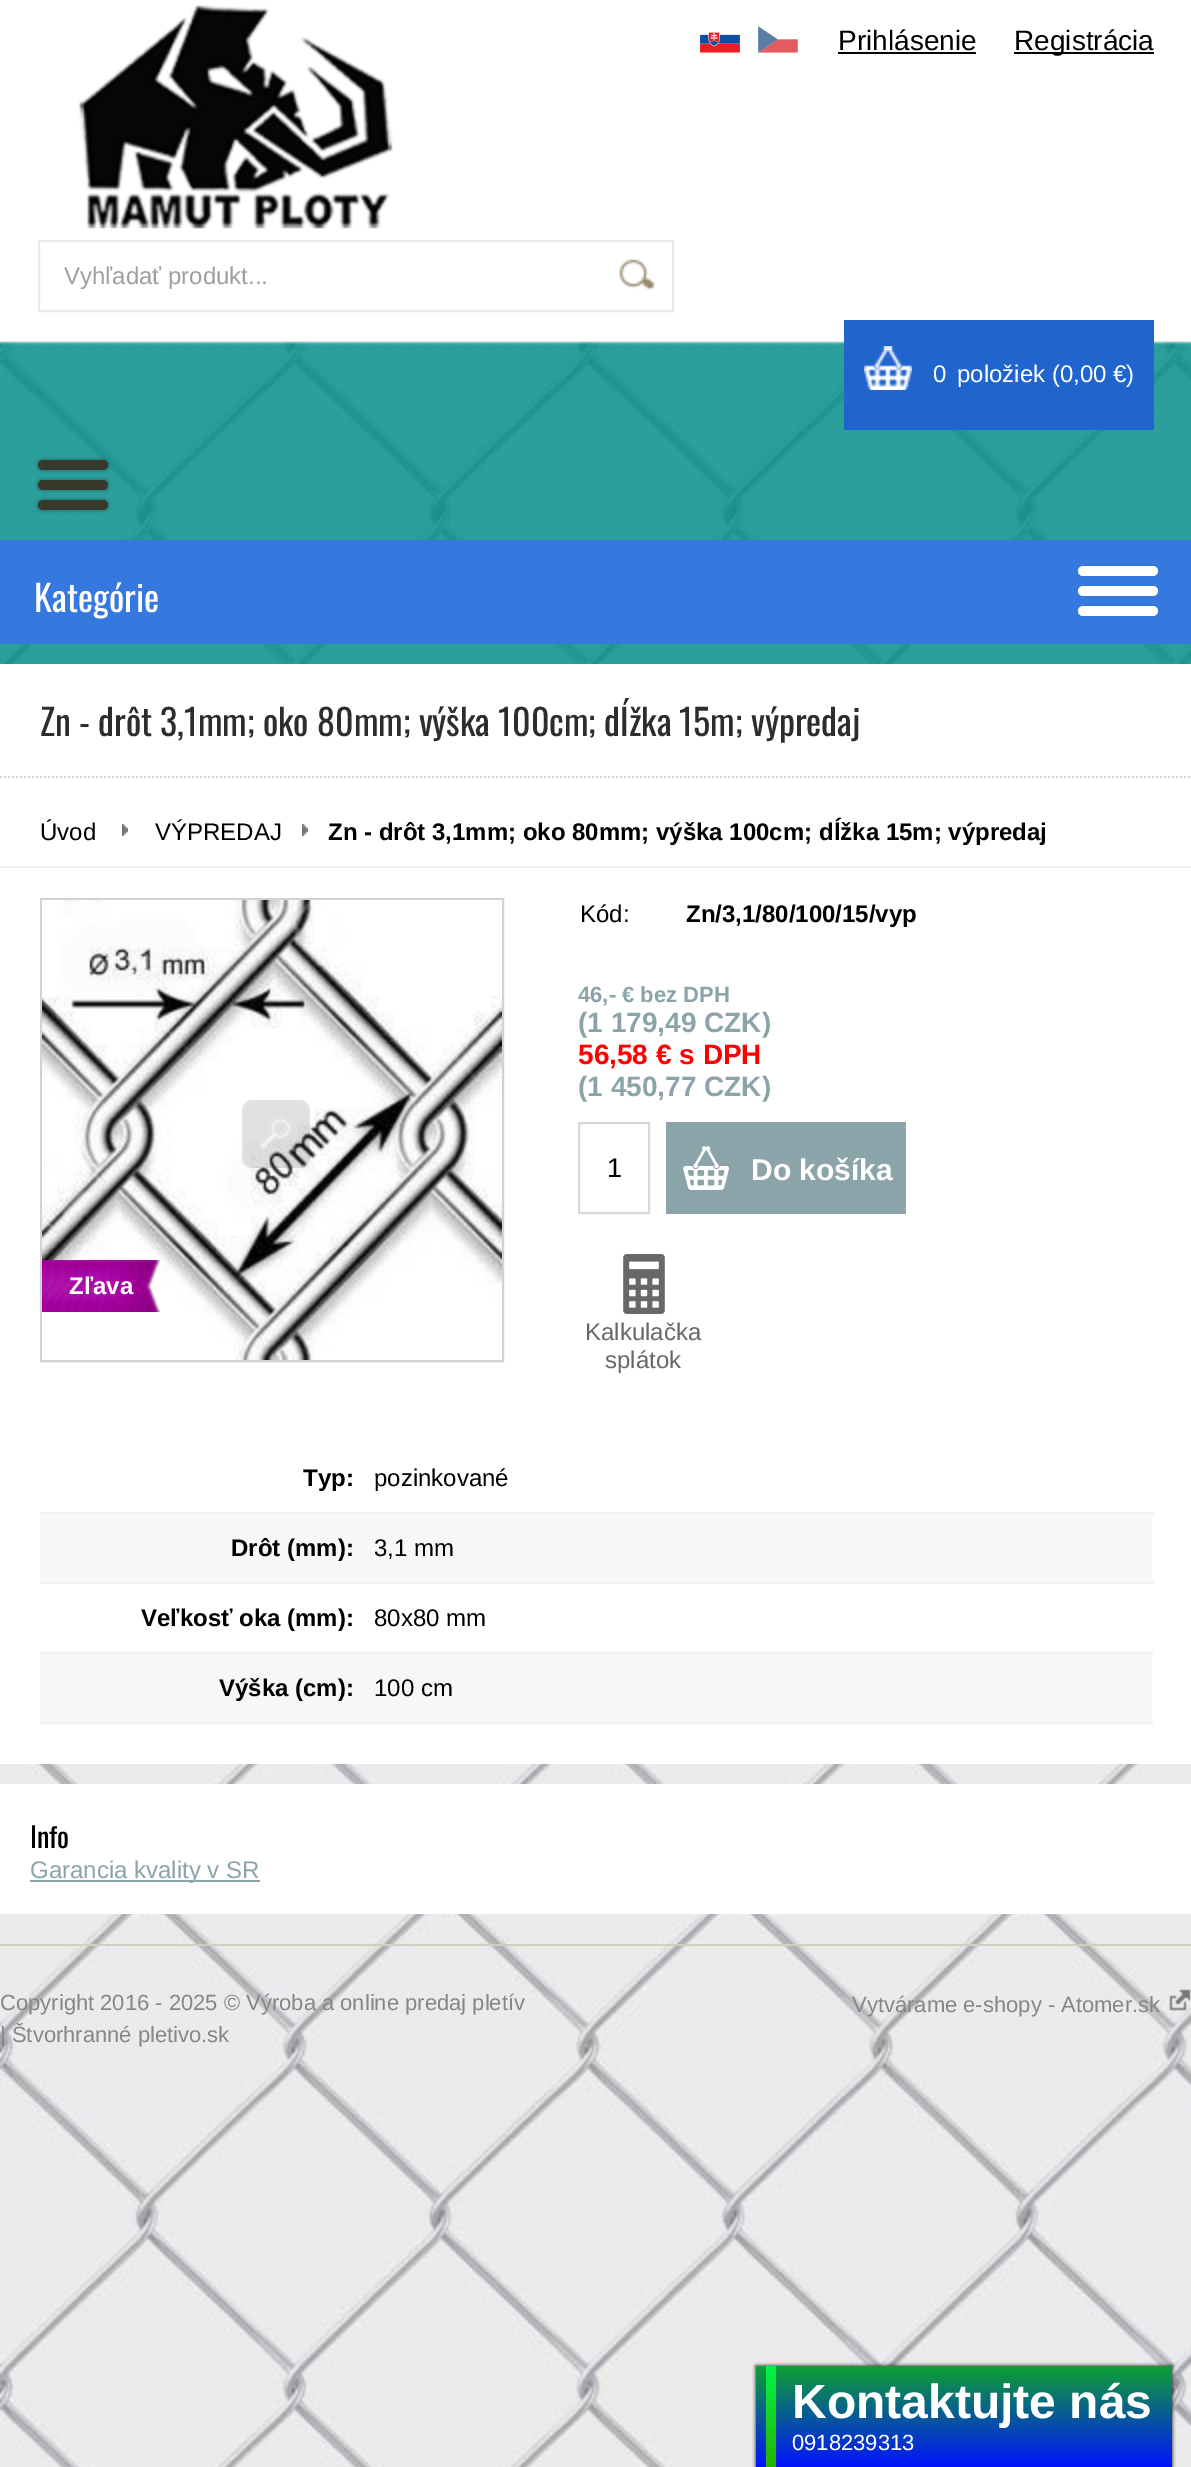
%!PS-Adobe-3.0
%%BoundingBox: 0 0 1191 2467
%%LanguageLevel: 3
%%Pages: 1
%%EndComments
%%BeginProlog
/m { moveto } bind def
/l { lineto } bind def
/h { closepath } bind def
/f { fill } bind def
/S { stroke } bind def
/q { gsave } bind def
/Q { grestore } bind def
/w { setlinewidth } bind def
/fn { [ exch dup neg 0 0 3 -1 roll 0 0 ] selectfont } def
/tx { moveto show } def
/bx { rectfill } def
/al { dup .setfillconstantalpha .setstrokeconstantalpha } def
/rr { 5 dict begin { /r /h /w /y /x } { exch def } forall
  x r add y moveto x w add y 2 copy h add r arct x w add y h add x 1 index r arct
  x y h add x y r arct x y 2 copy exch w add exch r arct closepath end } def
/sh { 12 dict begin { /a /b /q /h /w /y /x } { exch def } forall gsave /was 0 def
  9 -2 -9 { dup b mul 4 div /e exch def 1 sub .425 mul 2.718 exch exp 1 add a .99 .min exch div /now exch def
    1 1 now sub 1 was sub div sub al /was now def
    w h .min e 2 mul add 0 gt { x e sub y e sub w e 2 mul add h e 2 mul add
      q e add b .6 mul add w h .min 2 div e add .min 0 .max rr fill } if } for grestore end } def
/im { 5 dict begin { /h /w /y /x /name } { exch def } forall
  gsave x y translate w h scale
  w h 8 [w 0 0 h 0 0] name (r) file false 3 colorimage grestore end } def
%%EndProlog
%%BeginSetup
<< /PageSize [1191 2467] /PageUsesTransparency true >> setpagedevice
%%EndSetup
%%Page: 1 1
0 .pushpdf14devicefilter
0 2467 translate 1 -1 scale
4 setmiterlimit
1 setgray
0 0 1191 2467 bx
(image0.raw) 0 341 1191 2126 im
(image1.raw) 0 0 1191 664 im
(image2.raw) 700 32 40 21 im
(image3.raw) 758 26 40 27 im
/LiberationSans-Regular 28 fn
0 setgray
(Prihlásenie) 838 50 tx
838 52 138 2 bx
1014 52 140 2 bx
(Registrácia) 1014 50 tx
(image4.raw) 79 5 314 224 im
0.902 0.922 0.89 setrgbcolor
2 w
39 241 634 70 rectstroke
/LiberationSans-Regular 24 fn
0.612 0.624 0.643 setrgbcolor
(Vyhľadať produkt...) 64 284 tx
(image5.raw) 619 259 36 32 im
0.125 0.396 0.808 setrgbcolor
844 320 310 110 bx
(image6.raw) 864 346 48 44 im
1 setgray
(0) 933 382 tx
(položiek \(0,00 €\)) 957 382 tx
0 setgray
38 460 70 10 5 2 0.4 sh
0.224 0.224 0.169 setrgbcolor
38 460 70 10 5 rr f
0 setgray
38 480 70 10 5 2 0.4 sh
0.224 0.224 0.169 setrgbcolor
38 480 70 10 5 rr f
0 setgray
38 500 70 10 5 2 0.4 sh
0.224 0.224 0.169 setrgbcolor
38 500 70 10 5 rr f
0.208 0.471 0.871 setrgbcolor
0 540 1191 104 bx
/Oswald-Regular 36 fn
1 setgray
(Kategórie) 34 612 tx
1078 566 80 10 5 rr f
1078 586 80 10 5 rr f
1078 606 80 10 5 rr f
0 664 1191 1100 bx
0.847 setgray
[2 2] 0 setdash
0 777 m 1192 777 l S
0.176 setgray
(Zn - drôt 3,1mm; oko 80mm; výška 100cm; dĺžka 15m; výpredaj) 40 736 tx
0.949 setgray
0 866 1191 2 bx
/LiberationSans-Regular 24 fn
0 setgray
(Úvod) 40 840 tx
(image7.raw) 122 824 6 12 im
(VÝPREDAJ) 155 840 tx
(image7.raw) 302 824 6 12 im
/LiberationSans-Bold 24 fn
(Zn - drôt 3,1mm; oko 80mm; výška 100cm; dĺžka 15m; výpredaj) 328 840 tx
0.824 setgray
[] 0 setdash
41 899 462 462 rectstroke
(image8.raw) 42 900 460 460 im
(image9.raw) 242 1100 68 68 im
(image10.raw) 42 1260 118 52 im
1 setgray
(Zľava) 69 1294 tx
/LiberationSans-Regular 24 fn
0 setgray
(Kód:) 580 922 tx
/LiberationSans-Bold 24 fn
(Zn/3,1/80/100/15/vyp) 686 922 tx
/LiberationSans-Bold 22 fn
0.545 0.643 0.663 setrgbcolor
(46,- € bez DPH) 578 1002 tx
/LiberationSans-Bold 28 fn
(\(1 179,49 CZK\)) 578 1032 tx
1 0 0 setrgbcolor
(56,58 € s DPH) 578 1064 tx
0.545 0.643 0.663 setrgbcolor
(\(1 450,77 CZK\)) 578 1096 tx
0.847 setgray
579 1123 70 90 rectstroke
/LiberationSans-Regular 27 fn
0 setgray
(1) 607 1177 tx
0.545 0.643 0.663 setrgbcolor
666 1122 240 92 bx
(image11.raw) 683 1146 46 44 im
/LiberationSans-Bold 30 fn
1 setgray
(Do košíka) 751 1180 tx
(image12.raw) 623 1254 42 60 im
/LiberationSans-Regular 24 fn
0.408 setgray
(Kalkulačka) 585 1340 tx
(splátok) 605 1368 tx
/LiberationSans-Bold 24 fn
0 setgray
(Typ:) 303 1486 tx
0.949 setgray
40 1512 1114 2 bx
/LiberationSans-Regular 24 fn
0 setgray
(pozinkované) 374 1486 tx
0.969 setgray
40 1514 1112 68 bx
/LiberationSans-Bold 24 fn
0 setgray
(Drôt \(mm\):) 231 1556 tx
0.949 setgray
40 1582 1114 2 bx
/LiberationSans-Regular 24 fn
0 setgray
(3,1 mm) 374 1556 tx
/LiberationSans-Bold 24 fn
(Veľkosť oka \(mm\):) 141 1626 tx
0.949 setgray
40 1652 1114 2 bx
/LiberationSans-Regular 24 fn
0 setgray
(80x80 mm) 374 1626 tx
0.969 setgray
40 1654 1112 68 bx
/LiberationSans-Bold 24 fn
0 setgray
(Výška \(cm\):) 219 1696 tx
0.949 setgray
40 1722 1114 2 bx
/LiberationSans-Regular 24 fn
0 setgray
(100 cm) 374 1696 tx
1 setgray
0 1784 1191 130 bx
/Oswald-Regular 28 fn
0 setgray
(Info) 30 1848 tx
0.545 0.643 0.663 setrgbcolor
30 1880 230 2 bx
/LiberationSans-Regular 24 fn
(Garancia kvality v SR) 30 1878 tx
0.831 0.804 0.757 setrgbcolor
0 1944 1191 2 bx
/LiberationSans-Regular 22 fn
0.525 setgray
(Copyright 2016 - 2025 © Výroba a online predaj pletív) 0 2010 tx
(| Štvorhranné pletivo.sk) 0 2042 tx
(Vytvárame e-shopy - Atomer.sk) 852 2012 tx
(image13.raw) 1169 1989 22 22 im
0 setgray
756 2366 416 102 0 2 1 sh
q 756 2366 m 1172 2366 l 1172 2467 l 756 2467 l h clip newpath
<< /ShadingType 2 /ColorSpace /DeviceRGB /Coords [964 2366 964 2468] /Extend [true true] /Function << /FunctionType 2 /Domain [0 1] /C0 [0.055 0.627 0.196] /C1 [0.004 0.071 0.996] /N 1 >> >> shfill Q
q 766 2366 m 776 2366 l 776 2467 l 766 2467 l h clip newpath
<< /ShadingType 2 /ColorSpace /DeviceRGB /Coords [771 2366 771 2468] /Extend [true true] /Function << /FunctionType 2 /Domain [0 1] /C0 [0 0.961 0.286] /C1 [0.153 0.702 0] /N 1 >> >> shfill Q
/LiberationSans-Bold 48 fn
1 setgray
(Kontaktujte nás) 792 2418 tx
/LiberationSans-Regular 22 fn
(0918239313) 792 2450 tx
.poppdf14devicefilter showpage
%%EOF
